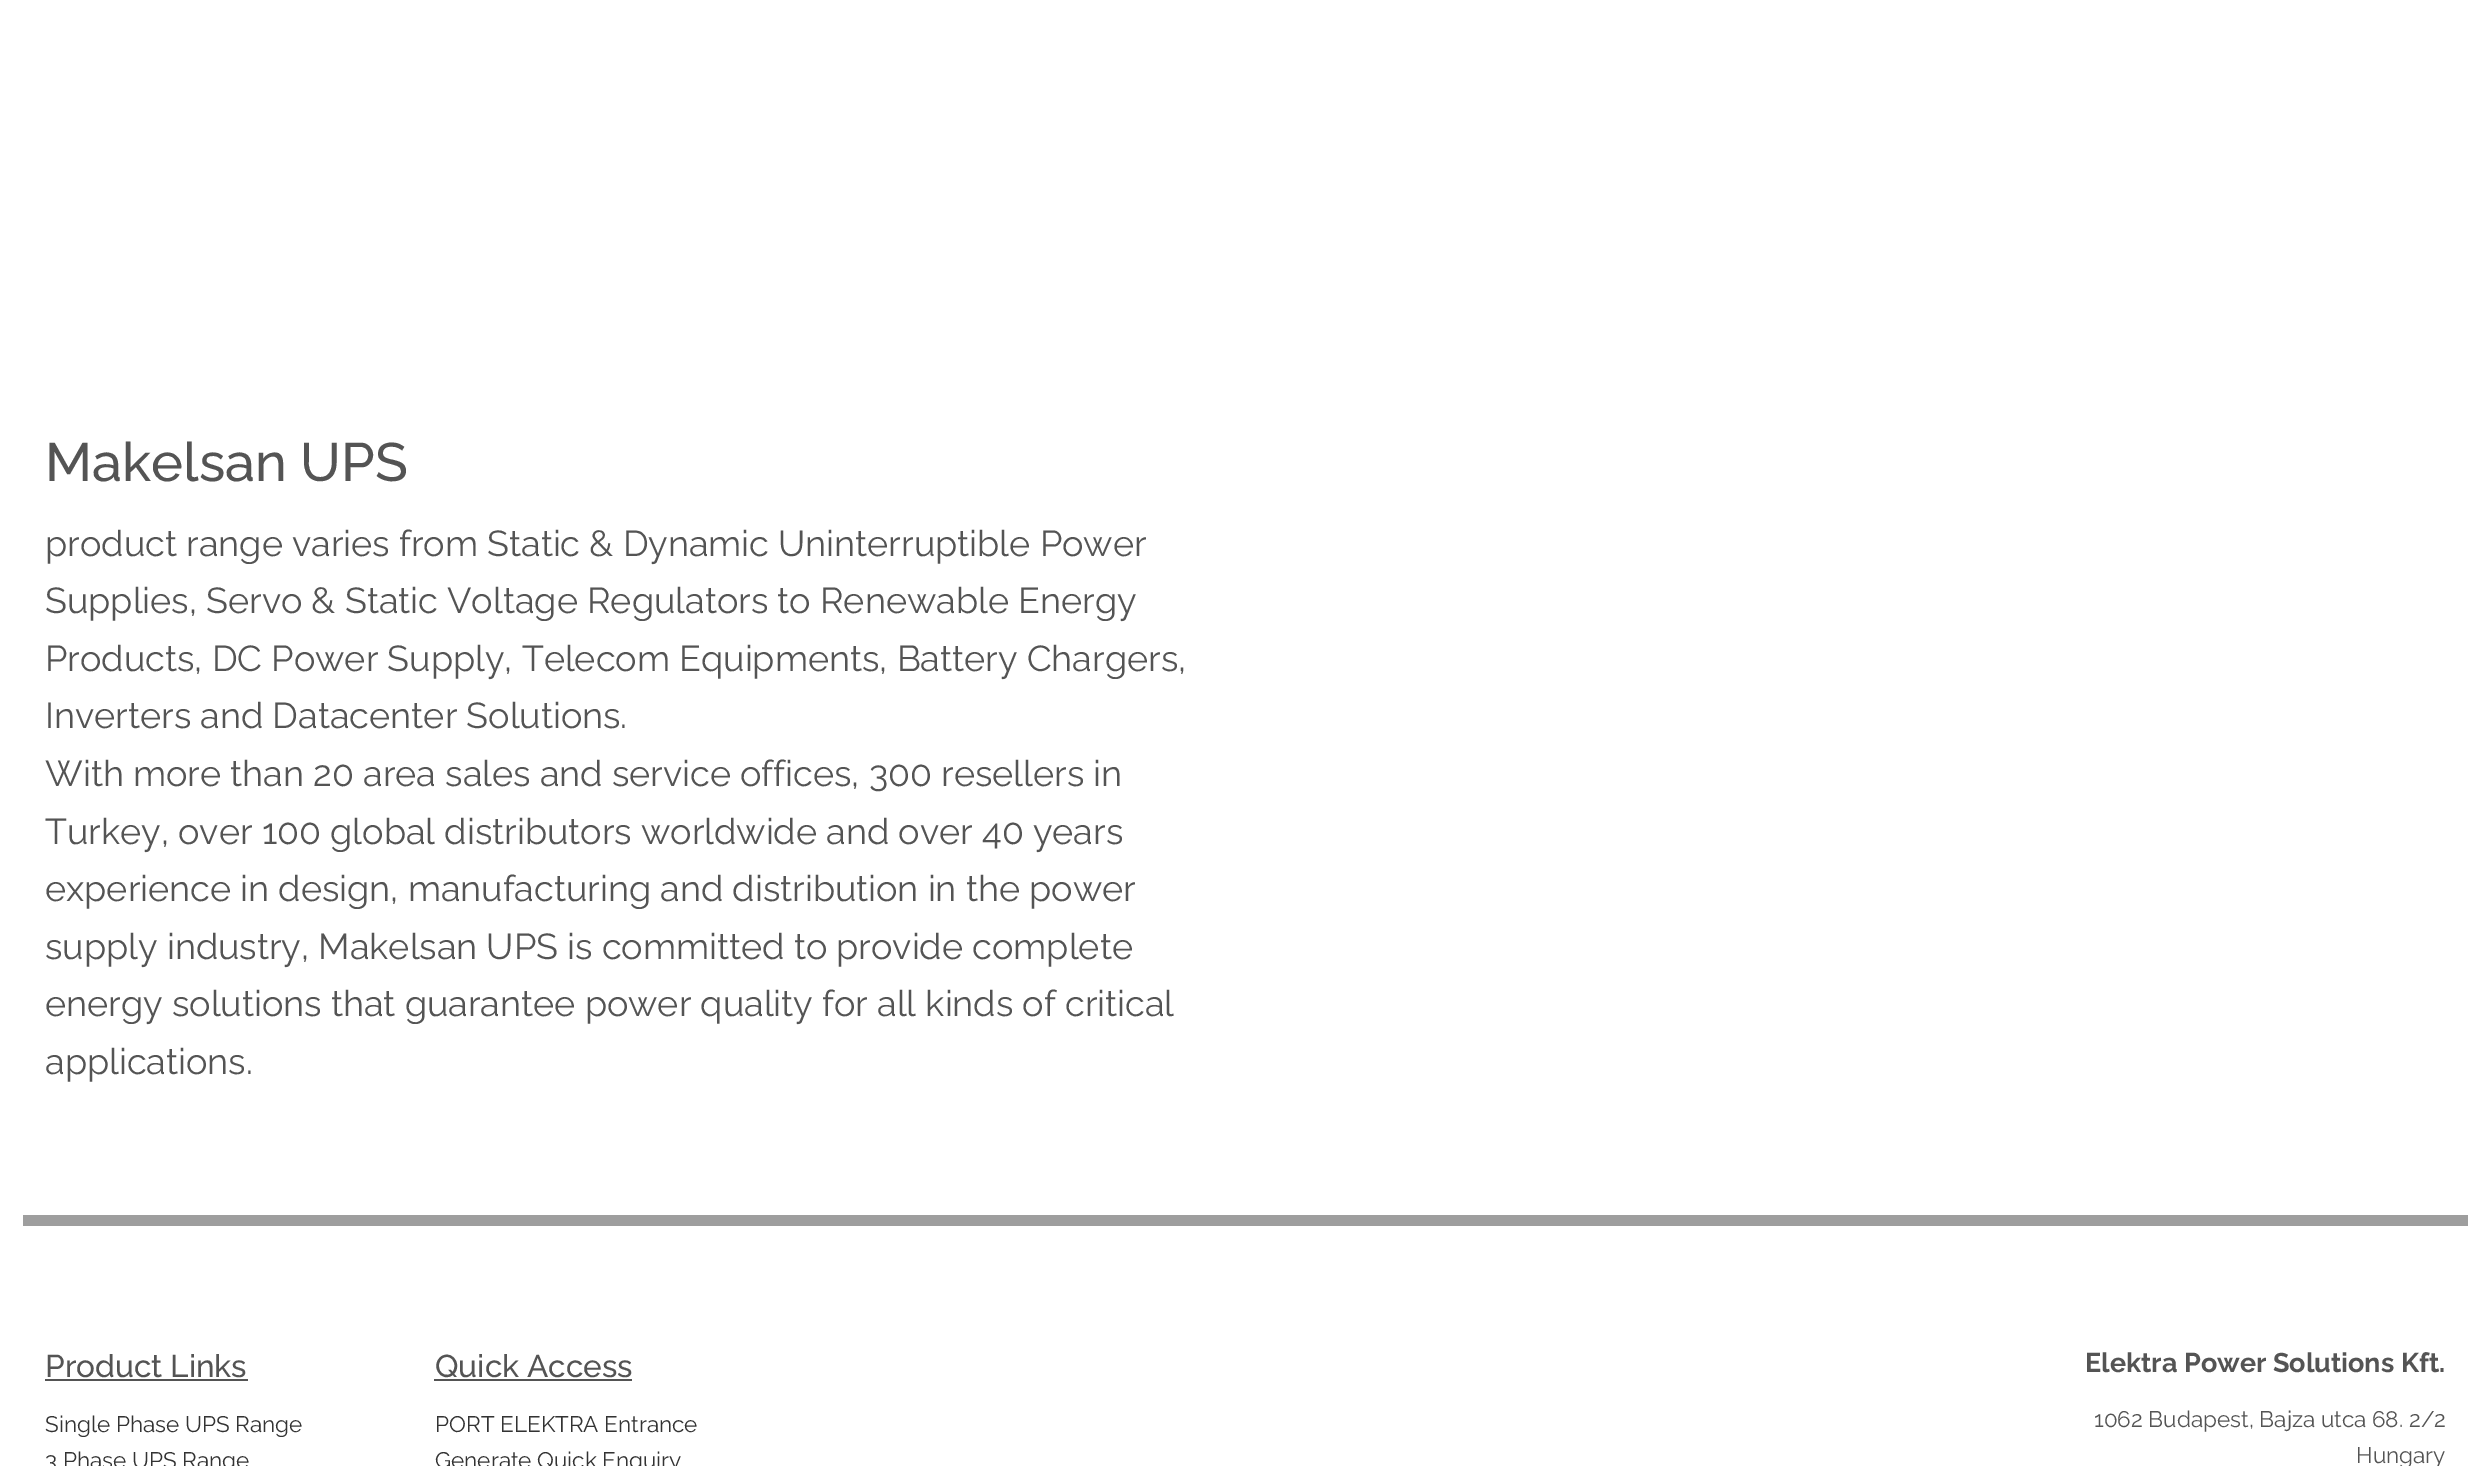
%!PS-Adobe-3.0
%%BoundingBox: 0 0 2490 1466
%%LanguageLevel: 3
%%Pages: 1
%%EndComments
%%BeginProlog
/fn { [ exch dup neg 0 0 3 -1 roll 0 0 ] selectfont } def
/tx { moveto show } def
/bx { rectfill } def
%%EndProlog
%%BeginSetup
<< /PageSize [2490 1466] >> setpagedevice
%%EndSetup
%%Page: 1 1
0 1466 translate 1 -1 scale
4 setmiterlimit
1 setgray
0 0 2490 1466 bx
/Raleway-Medium 54 fn
0.329 setgray
(Makelsan UPS) 45 481 tx
/Raleway-Regular 36 fn
(product range varies from Static & Dynamic Uninterruptible Power) 45 556 tx
(Supplies, Servo & Static Voltage Regulators to Renewable Energy) 45 613 tx
(Products, DC Power Supply, Telecom Equipments, Battery Chargers,) 45 671 tx
(Inverters and Datacenter Solutions.) 45 728 tx
(With more than 20 area sales and service offices, 300 resellers in) 45 786 tx
(Turkey, over 100 global distributors worldwide and over 40 years) 45 844 tx
(experience in design, manufacturing and distribution in the power) 45 901 tx
(supply industry, Makelsan UPS is committed to provide complete) 45 959 tx
(energy solutions that guarantee power quality for all kinds of critical) 45 1016 tx
(applications.) 45 1074 tx
0.62 setgray
23 1215 2445 11 bx
/Raleway-Medium 31.5 fn
0.329 setgray
(Product Links) 45 1377 tx
45 1379 203 2 bx
/Raleway-Regular 22.5 fn
0.2 setgray
(Single Phase UPS Range) 45 1432 tx
(3 Phase UPS Range) 45 1468 tx
/Raleway-Medium 31.5 fn
0.329 setgray
(Quick Access) 435 1377 tx
434 1379 198 2 bx
/Raleway-Regular 22.5 fn
0.2 setgray
(PORT ELEKTRA Entrance) 435 1432 tx
(Generate Quick Enquiry) 435 1468 tx
/Raleway-Bold 27 fn
0.329 setgray
(Elektra Power Solutions Kft.) 2085 1372 tx
/Raleway-Regular 22.5 fn
(1062 Budapest, Bajza utca 68. 2/2) 2094 1427 tx
(Hungary) 2356 1463 tx
showpage
%%EOF
